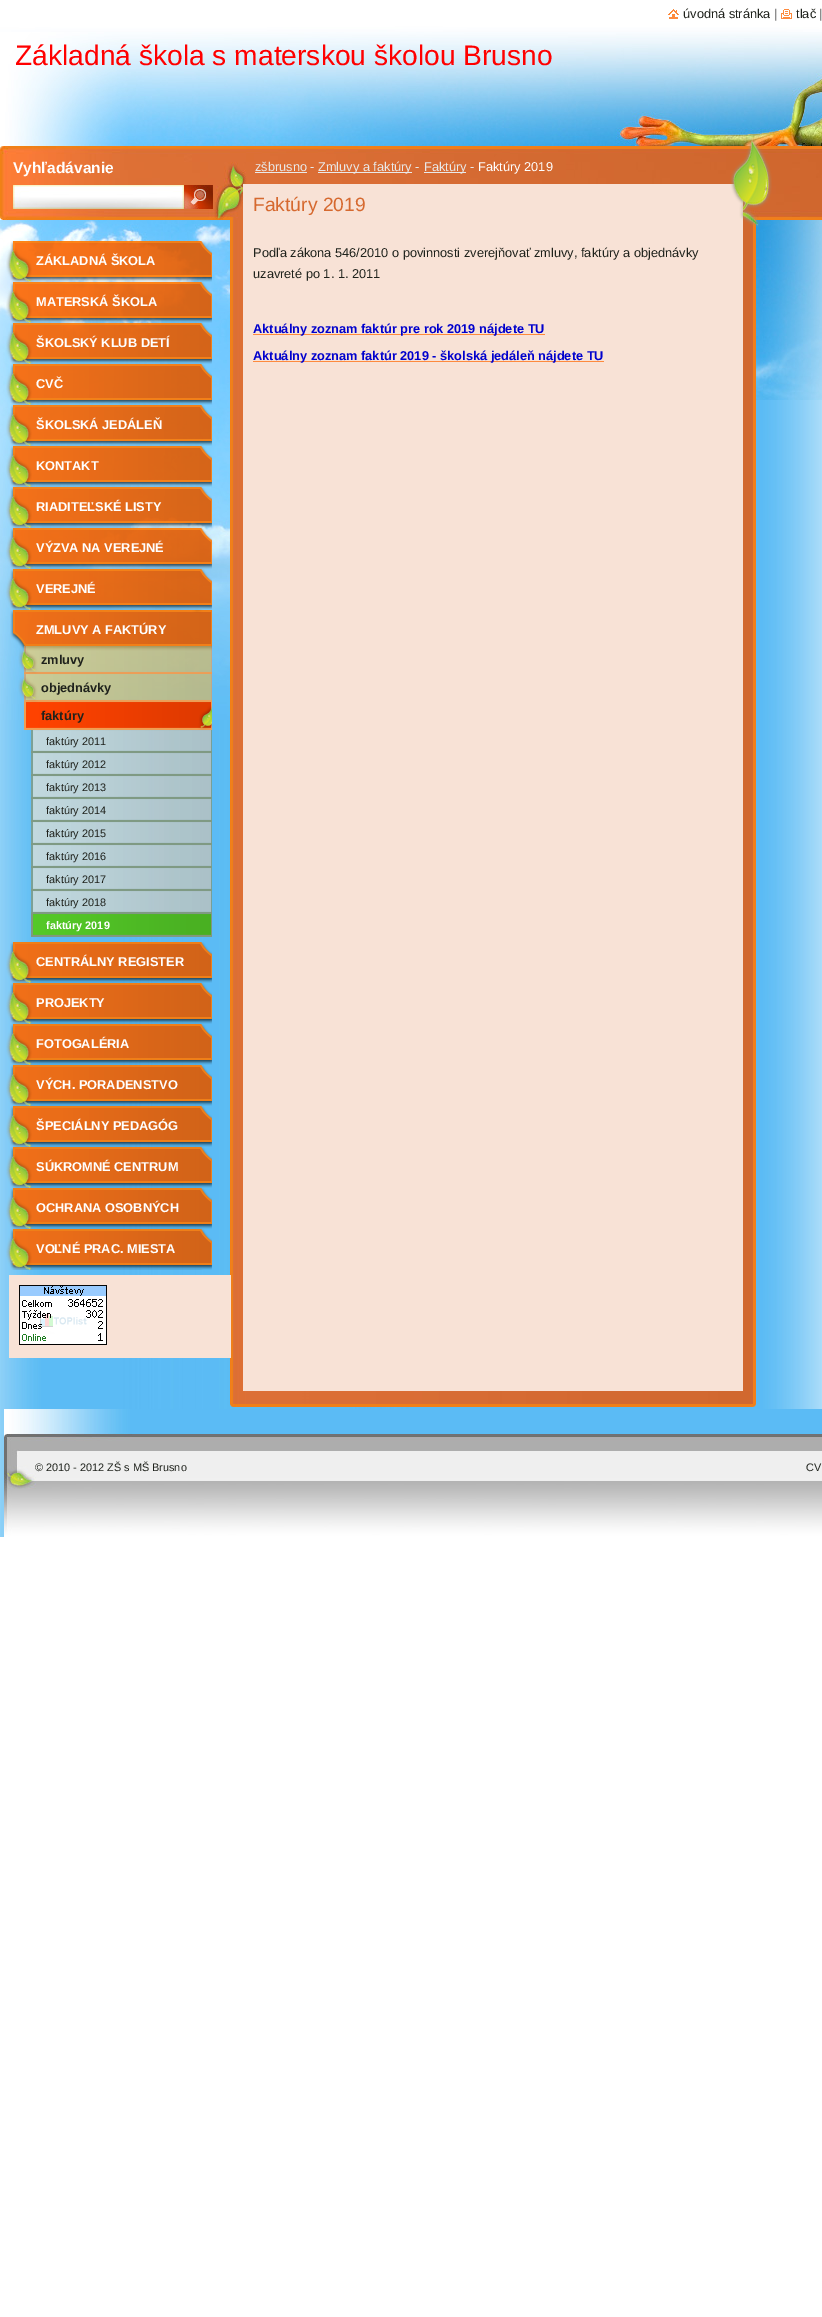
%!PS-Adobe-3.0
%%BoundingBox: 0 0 822 2317
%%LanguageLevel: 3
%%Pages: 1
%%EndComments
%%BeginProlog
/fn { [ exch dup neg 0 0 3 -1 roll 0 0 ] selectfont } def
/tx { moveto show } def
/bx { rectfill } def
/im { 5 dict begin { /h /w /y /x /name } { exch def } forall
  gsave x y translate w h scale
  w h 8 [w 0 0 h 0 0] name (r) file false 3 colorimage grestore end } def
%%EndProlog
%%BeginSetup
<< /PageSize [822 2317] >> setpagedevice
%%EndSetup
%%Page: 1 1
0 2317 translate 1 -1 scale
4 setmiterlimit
1 setgray
0 0 822 2317 bx
(image0.raw) 0 720 822 817 im
(image1.raw) 0 0 822 720 im
(image2.raw) 668 9 11 10 im
/LiberationSans-Regular 12.8 fn
0.122 0.133 0.11 setrgbcolor
(úvodná stránka) 683 18 tx
0.392 setgray
(|) 774 18 tx
(image3.raw) 781 9 11 10 im
0.122 0.133 0.11 setrgbcolor
(tlač) 796 18 tx
0.392 setgray
(|) 819 18 tx
(image4.raw) 0 32 822 114 im
/LiberationSans-Regular 28.2 fn
1 0 0 setrgbcolor
(Základná škola s materskou školou Brusno) 15 65 tx
(image5.raw) 0 146 822 74 im
/LiberationSans-Bold 15.5 fn
1 setgray
(Vyhľadávanie) 13 173 tx
(image6.raw) 13 185 171 24 im
(image7.raw) 184 185 29 24 im
(image8.raw) 230 220 526 1184 im
(image9.raw) 230 146 526 74 im
/LiberationSans-Regular 12.8 fn
0.914 setgray
(zšbrusno -) 255 171 tx
255 172 52 1 bx
318 172 94 1 bx
(Zmluvy a faktúry -) 318 171 tx
424 172 42 1 bx
(Faktúry -) 424 171 tx
1 setgray
(Faktúry 2019) 478 171 tx
0.973 0.886 0.839 setrgbcolor
243 184 500 1207 bx
/LiberationSans-Regular 19.25 fn
0.839 0.412 0.184 setrgbcolor
(Faktúry 2019) 253 211 tx
/LiberationSans-Regular 12.8 fn
0.122 0.133 0.11 setrgbcolor
(Podľa zákona 546/2010 o povinnosti zverejňovať zmluvy, faktúry a objednávky) 253 257 tx
(uzavreté po 1. 1. 2011) 253 278 tx
0.996 0.541 0.239 setrgbcolor
253 334 292 1 bx
/LiberationSans-Bold 12.8 fn
0 0 0.804 setrgbcolor
(Aktuálny zoznam faktúr pre rok 2019 nájdete TU) 253 333 tx
0.996 0.541 0.239 setrgbcolor
253 361 351 1 bx
0 0 0.804 setrgbcolor
(Aktuálny zoznam faktúr 2019 - školská jedáleň nájdete TU) 253 360 tx
(image10.raw) 230 1404 526 3 im
(image11.raw) 730 139 42 88 im
(image12.raw) 6 241 206 41 im
1 setgray
(ZÁKLADNÁ ŠKOLA) 36 265 tx
(image13.raw) 6 282 206 41 im
(MATERSKÁ ŠKOLA) 36 306 tx
(image14.raw) 6 323 206 41 im
(ŠKOLSKÝ KLUB DETÍ) 36 347 tx
(image15.raw) 6 364 206 41 im
(CVČ) 36 388 tx
(image16.raw) 6 405 206 41 im
(ŠKOLSKÁ JEDÁLEŇ) 36 429 tx
(image17.raw) 6 446 206 41 im
(KONTAKT) 36 470 tx
(image18.raw) 6 487 206 41 im
(RIADITEĽSKÉ LISTY) 36 511 tx
(image19.raw) 6 528 206 41 im
(VÝZVA NA VEREJNÉ) 36 552 tx
(image20.raw) 6 569 206 41 im
(VEREJNÉ) 36 593 tx
(image21.raw) 10 610 202 41 im
(ZMLUVY A FAKTÚRY) 36 634 tx
(image22.raw) 18 646 194 28 im
0.122 0.133 0.11 setrgbcolor
(zmluvy) 41 664 tx
(image23.raw) 18 674 194 28 im
(objednávky) 41 692 tx
(image24.raw) 24 702 188 28 im
(faktúry) 41 720 tx
(image25.raw) 31 730 181 23 im
/LiberationSans-Regular 10.9 fn
(faktúry 2011) 46 745 tx
(image25.raw) 31 753 181 23 im
(faktúry 2012) 46 768 tx
(image25.raw) 31 776 181 23 im
(faktúry 2013) 46 791 tx
(image25.raw) 31 799 181 23 im
(faktúry 2014) 46 814 tx
(image25.raw) 31 822 181 23 im
(faktúry 2015) 46 837 tx
(image25.raw) 31 845 181 23 im
(faktúry 2016) 46 860 tx
(image25.raw) 31 868 181 23 im
(faktúry 2017) 46 883 tx
(image25.raw) 31 891 181 23 im
(faktúry 2018) 46 906 tx
(image26.raw) 31 914 181 23 im
/LiberationSans-Bold 10.9 fn
1 setgray
(faktúry 2019) 46 929 tx
(image27.raw) 6 942 206 41 im
/LiberationSans-Bold 12.8 fn
(CENTRÁLNY REGISTER) 36 966 tx
(image27.raw) 6 983 206 41 im
(PROJEKTY) 36 1007 tx
(image27.raw) 6 1024 206 41 im
(FOTOGALÉRIA) 36 1048 tx
(image27.raw) 6 1065 206 41 im
(VÝCH. PORADENSTVO) 36 1089 tx
(image27.raw) 6 1106 206 41 im
(ŠPECIÁLNY PEDAGÓG) 36 1130 tx
(image27.raw) 6 1147 206 41 im
(SÚKROMNÉ CENTRUM) 36 1171 tx
(image27.raw) 6 1188 206 41 im
(OCHRANA OSOBNÝCH) 36 1212 tx
(image27.raw) 6 1229 206 41 im
(VOĽNÉ PRAC. MIESTA) 36 1253 tx
0.973 0.886 0.839 setrgbcolor
9 1275 222 83 bx
(image28.raw) 19 1285 88 60 im
(image29.raw) 4 1409 818 128 im
/LiberationSans-Regular 10.9 fn
0.122 0.133 0.11 setrgbcolor
(© 2010 - 2012 ZŠ s MŠ Brusno) 35 1471 tx
(CV) 806 1471 tx
showpage
%%EOF
